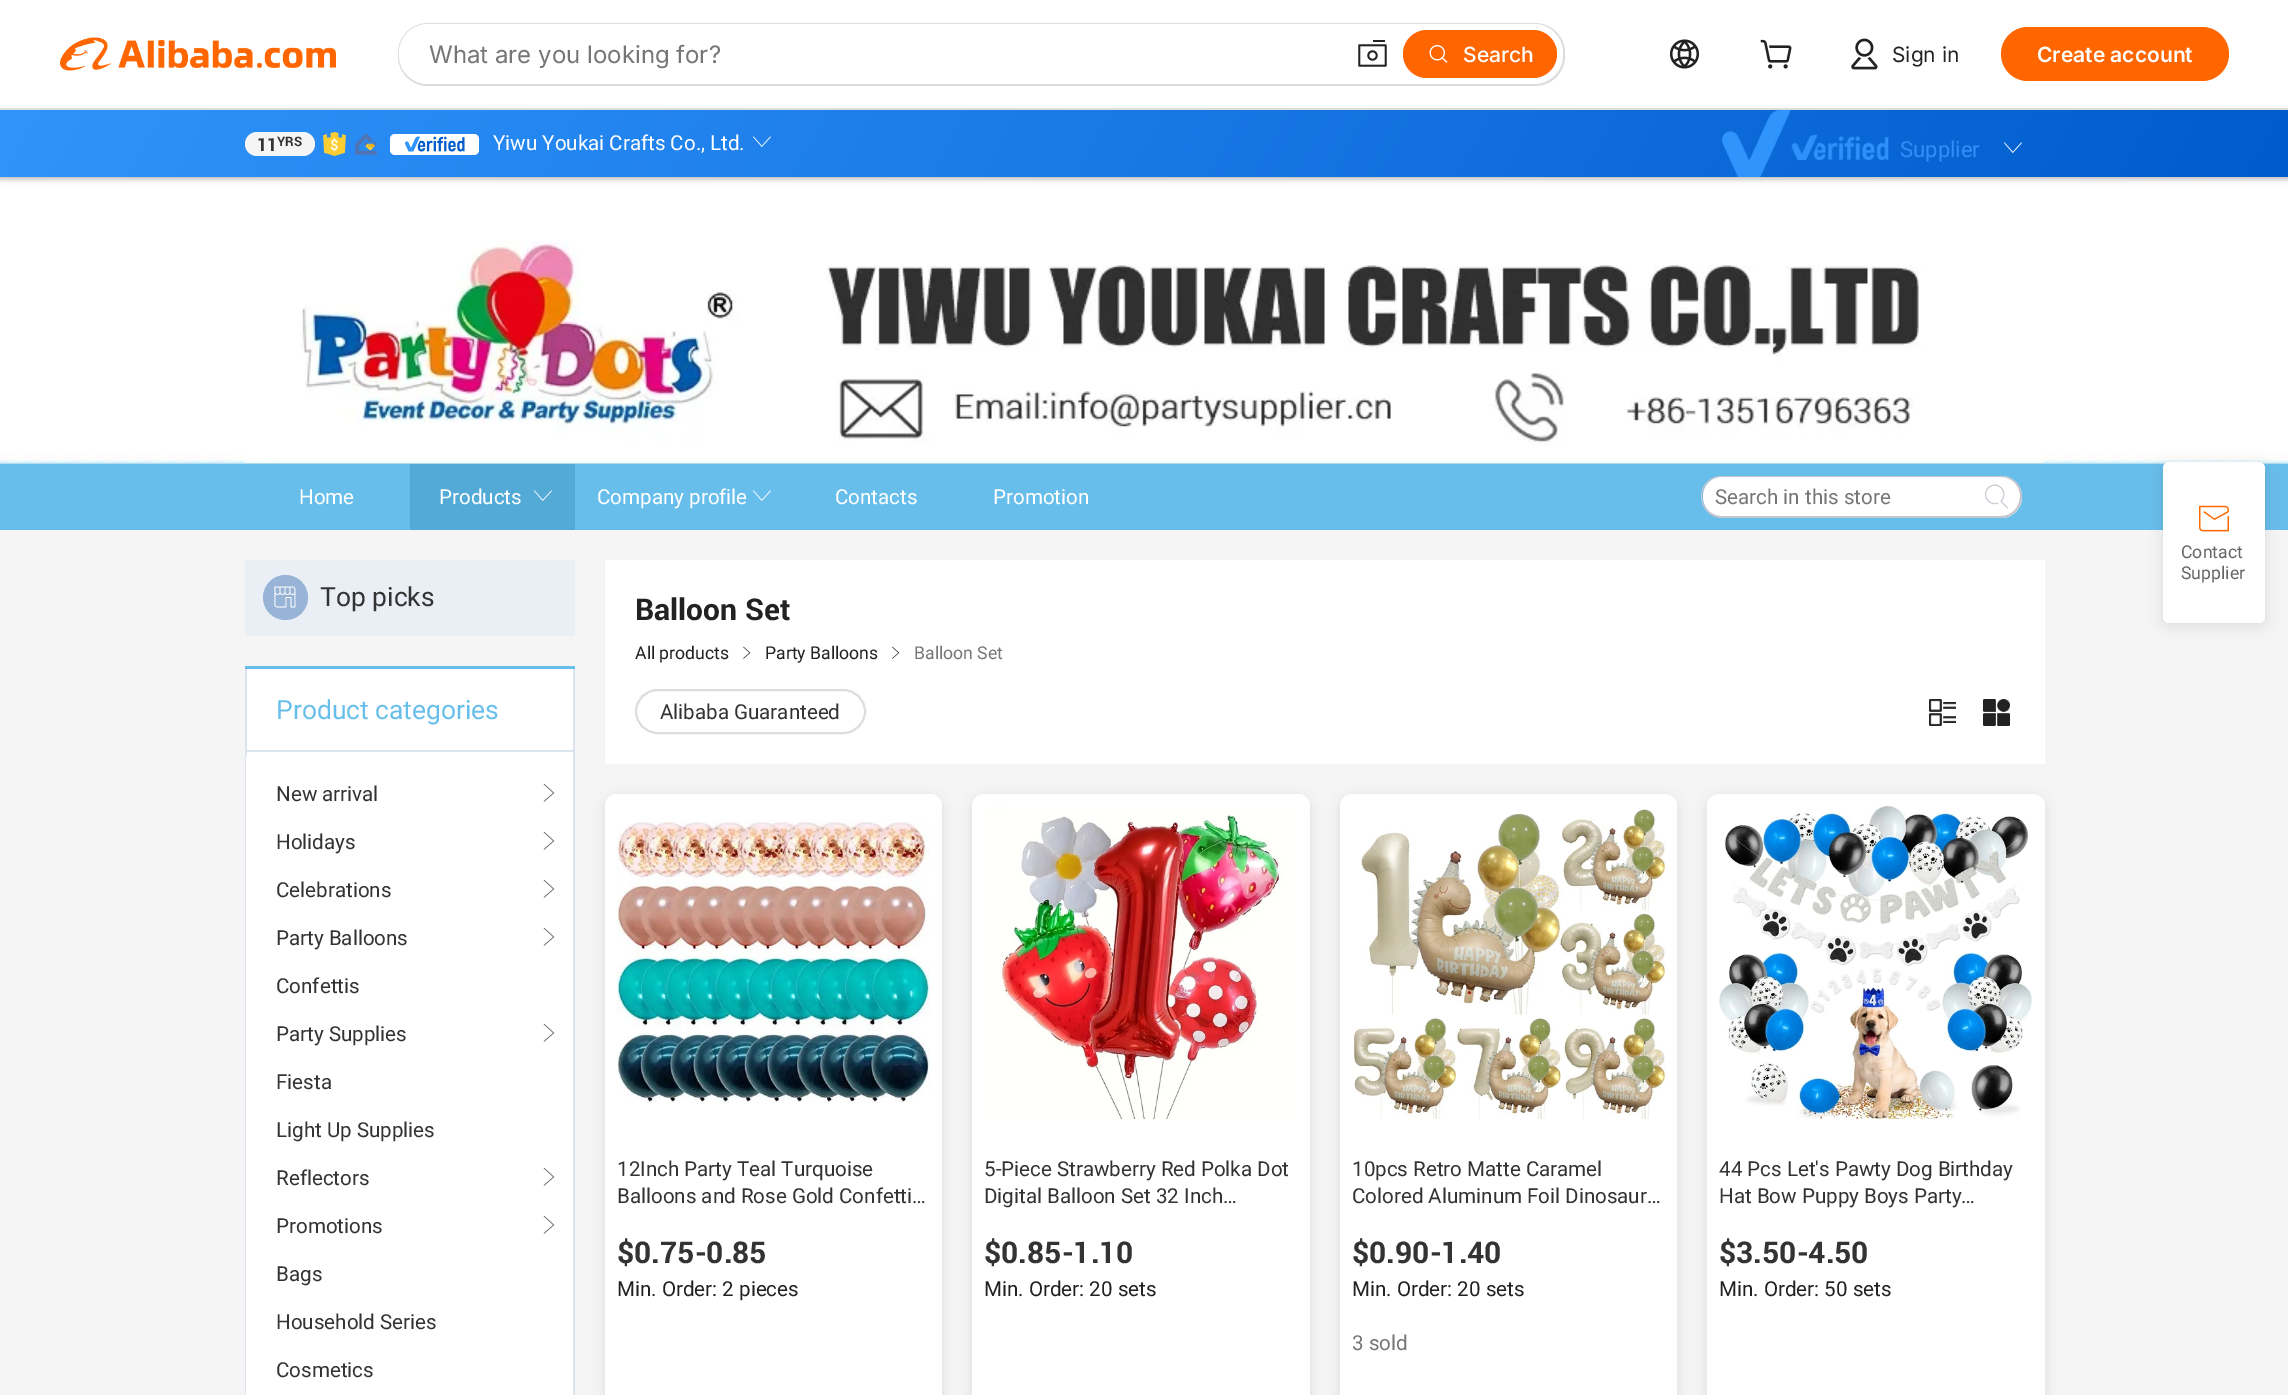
%!PS-Adobe-3.0
%%BoundingBox: 0 0 2288 1395
%%LanguageLevel: 3
%%Pages: 1
%%EndComments
%%BeginProlog
/m { moveto } bind def
/l { lineto } bind def
/c { curveto } bind def
/h { closepath } bind def
/f { fill } bind def
/S { stroke } bind def
/q { gsave } bind def
/Q { grestore } bind def
/w { setlinewidth } bind def
/fn { [ exch dup neg 0 0 3 -1 roll 0 0 ] selectfont } def
/tx { moveto show } def
/bx { rectfill } def
/al { dup .setfillconstantalpha .setstrokeconstantalpha } def
/ci { newpath 0 360 arc closepath } def
/rr { 5 dict begin { /r /h /w /y /x } { exch def } forall
  x r add y moveto x w add y 2 copy h add r arct x w add y h add x 1 index r arct
  x y h add x y r arct x y 2 copy exch w add exch r arct closepath end } def
/sh { 12 dict begin { /a /b /q /h /w /y /x } { exch def } forall gsave /was 0 def
  9 -2 -9 { dup b mul 4 div /e exch def 1 sub .425 mul 2.718 exch exp 1 add a .99 .min exch div /now exch def
    1 1 now sub 1 was sub div sub al /was now def
    w h .min e 2 mul add 0 gt { x e sub y e sub w e 2 mul add h e 2 mul add
      q e add b .6 mul add w h .min 2 div e add .min 0 .max rr fill } if } for grestore end } def
/im { 5 dict begin { /h /w /y /x /name } { exch def } forall
  gsave x y translate w h scale
  w h 8 [w 0 0 h 0 0] name (r) file false 3 colorimage grestore end } def
%%EndProlog
%%BeginSetup
<< /PageSize [2288 1395] /PageUsesTransparency true >> setpagedevice
%%EndSetup
%%Page: 1 1
0 .pushpdf14devicefilter
0 1395 translate 1 -1 scale
4 setmiterlimit
1 setgray
0 0 2288 1395 bx
0 setgray
0 111 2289 68 0 3 0.28 sh
1 setgray
0 106 2288 2 bx
0.867 setgray
0 108 2288 2 bx
(image0.raw) 60 37 276 34 im
398 23 1167 63 30 rr f
1 setgray
399 24 1164 60 29 rr f
/Inter-Regular 24 fn
0.463 setgray
(What are you looking for?) 429 63 tx
(image1.raw) 1358 40 29 27 im
1 0.4 0 setrgbcolor
1403 30 154 48 24 rr f
(image2.raw) 1429 45 19 18 im
/Inter-Medium 21 fn
1 setgray
(Search) 1463 62 tx
(image3.raw) 1670 39 29 30 im
(image4.raw) 1760 39 32 30 im
(image5.raw) 1851 38 27 32 im
/Inter-Regular 21 fn
0.133 setgray
(Sign in) 1892 62 tx
1 0.4 0 setrgbcolor
2001 27 228 54 27 rr f
/Inter-SemiBold 21 fn
1 setgray
(Create account) 2037 62 tx
q 0 110 m 2288 110 l 2288 177 l 0 177 l h clip newpath
<< /ShadingType 2 /ColorSpace /DeviceRGB /Coords [238 -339 2051 625] /Extend [true true] /Function << /FunctionType 2 /Domain [0 1] /C0 [0.188 0.58 0.988] /C1 [0 0.361 0.8] /N 1 >> >> shfill Q
0.961 setgray
245 132 70 24 12 rr f
/Roboto-Bold 18 fn
0.2 setgray
(11) 257 151 tx
/Roboto-Bold 13 fn
(YRS) 277 146 tx
(image6.raw) 323 132 23 24 im
(image7.raw) 355 133 22 22 im
1 setgray
390 134 89 21 5 rr f
(image8.raw) 405 136 60 16 im
/Roboto-Regular 21 fn
(Yiwu Youkai Crafts Co., Ltd.) 493 150 tx
(image9.raw) 753 136 18 11 im
(image10.raw) 1722 110 167 67 im
/Roboto-Regular 22.5 fn
0.204 0.553 0.973 setrgbcolor
(Supplier) 1900 157 tx
(image11.raw) 2004 142 18 11 im
(image16.raw) 0 239 2288 225 im
(image12.raw) 244 239 1801 225 im
0.404 0.745 0.922 setrgbcolor
0 464 2288 66 bx
/Roboto-Regular 21 fn
1 setgray
(Home) 299 504 tx
0.325 0.667 0.843 setrgbcolor
410 464 165 66 bx
1 setgray
(Products) 439 504 tx
(image13.raw) 534 490 18 11 im
(Company profile) 597 504 tx
(image14.raw) 753 490 18 11 im
(Contacts) 835 504 tx
(Promotion) 993 504 tx
0.769 0.776 0.812 setrgbcolor
1722 476 m 1972 476 l 1972 518 l 1722 518 l 1710 518 1701 508 1701 496 c 1701 485 1710 476 1722 476 c h 1722 477 m 1972 477 l 1972 516 l 1722 516 l 1711 516 1702 507 1702 496 c 1702 486 1711 477 1722 477 c h eofill
1 setgray
1722.5 477 m 1972 477 l 1972.5 477 1973 477.5 1973 478 c 1973 515 l 1973 515.5 1972.5 516 1972 516 c 1722.5 516 l 1711.5 516 1703 507.5 1703 496.5 c 1703 485.5 1711.5 477 1722.5 477 c h f
0.463 setgray
(Search in this store) 1715 504 tx
1 setgray
1973 476 m 2001 476 l 2012.5 476 2022 485.5 2022 497 c 2022 508.5 2012.5 518 2001 518 c 1973 518 l h f
0.769 0.776 0.812 setrgbcolor
1972 476 m 2001 476 l 2013 476 2022 485 2022 496 c 2022 508 2013 518 2001 518 c 1972 518 l h 1972 477 m 2001 477 l 2012 477 2020 486 2020 496 c 2020 507 2012 516 2001 516 c 1972 516 l h eofill
(image15.raw) 1985 484 23 25 im
0.961 setgray
0 530 2288 865 bx
0.914 0.937 0.961 setrgbcolor
245 560 330 76 bx
0.592 0.702 0.835 setrgbcolor
285.5 597.5 22.5 ci f
(image17.raw) 274 586 22 22 im
/Roboto-Regular 27 fn
0.2 setgray
(Top picks) 320 606 tx
1 setgray
247 669 326 89 bx
0.404 0.745 0.922 setrgbcolor
245 666 330 3 bx
0.859 0.89 0.937 setrgbcolor
573 669 2 726 bx
245 669 2 726 bx
246 750 327 2 bx
0.404 0.745 0.922 setrgbcolor
(Product categories) 276 719 tx
1 setgray
246 752 327 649 6 rr f
/Roboto-Regular 21 fn
0.2 setgray
(New arrival) 276 801 tx
(image18.raw) 543 783 12 19 im
(Holidays) 276 849 tx
(image18.raw) 543 831 12 19 im
(Celebrations) 276 897 tx
(image18.raw) 543 879 12 19 im
(Party Balloons) 276 945 tx
(image18.raw) 543 927 12 19 im
(Confettis) 276 993 tx
(Party Supplies) 276 1041 tx
(image18.raw) 543 1023 12 19 im
(Fiesta) 276 1089 tx
(Light Up Supplies) 276 1137 tx
(Reflectors) 276 1185 tx
(image18.raw) 543 1167 12 19 im
(Promotions) 276 1233 tx
(image18.raw) 543 1215 12 19 im
(Bags) 276 1281 tx
(Household Series) 276 1329 tx
(Cosmetics) 276 1377 tx
1 setgray
605 560 1440 204 bx
/Roboto-Bold 30 fn
0.133 setgray
(Balloon Set) 635 620 tx
/Roboto-Regular 18 fn
(All products) 635 659 tx
(image19.raw) 743 646 8 13 im
(Party Balloons) 765 659 tx
(image20.raw) 892 646 8 13 im
0.463 setgray
(Balloon Set) 914 659 tx
0.867 setgray
2 w
636 690 229 43 21.5 rr S
/Roboto-Regular 21 fn
0.2 setgray
(Alibaba Guaranteed) 660 719 tx
(image21.raw) 1929 699 27 27 im
(image22.raw) 1983 698 28 28 im
0 setgray
605 797 337 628 12 6 0.1 sh
1 setgray
605 794 337 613 12 rr f
(image23.raw) 616 820 314 283 im
0.2 setgray
(12Inch Party Teal Turquoise) 617 1176 tx
(Balloons and Rose Gold Confetti…) 617 1203 tx
/Roboto-Bold 30 fn
($0.75-0.85) 617 1263 tx
/Roboto-Regular 21 fn
0.133 setgray
(Min. Order: 2 pieces) 617 1296 tx
0 setgray
972 797 338 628 12 6 0.1 sh
1 setgray
972 794 338 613 12 rr f
(image24.raw) 984 806 313 313 im
0.2 setgray
(5-Piece Strawberry Red Polka Dot) 984 1176 tx
(Digital Balloon Set 32 Inch…) 984 1203 tx
/Roboto-Bold 30 fn
($0.85-1.10) 984 1263 tx
/Roboto-Regular 21 fn
0.133 setgray
(Min. Order: 20 sets) 984 1296 tx
0 setgray
1340 797 337 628 12 6 0.1 sh
1 setgray
1340 794 337 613 12 rr f
(image25.raw) 1352 806 313 313 im
0.2 setgray
(10pcs Retro Matte Caramel) 1352 1176 tx
(Colored Aluminum Foil Dinosaur…) 1352 1203 tx
/Roboto-Bold 30 fn
($0.90-1.40) 1352 1263 tx
/Roboto-Regular 21 fn
0.133 setgray
(Min. Order: 20 sets) 1352 1296 tx
0.463 setgray
(3 sold) 1352 1350 tx
0 setgray
1707 797 338 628 12 6 0.1 sh
1 setgray
1707 794 338 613 12 rr f
(image26.raw) 1719 806 313 313 im
0.2 setgray
(44 Pcs Let's Pawty Dog Birthday) 1719 1176 tx
(Hat Bow Puppy Boys Party…) 1719 1203 tx
/Roboto-Bold 30 fn
($3.50-4.50) 1719 1263 tx
/Roboto-Regular 21 fn
0.133 setgray
(Min. Order: 50 sets) 1719 1296 tx
0 setgray
2163 465 102 161 6 7.5 0.1 sh
1 setgray
2163 462 102 161 6 rr f
(image27.raw) 2199 505 30 27 im
/Roboto-Regular 18 fn
0.4 setgray
(Contact) 2181 558 tx
(Supplier) 2181 579 tx
.poppdf14devicefilter showpage
%%EOF
